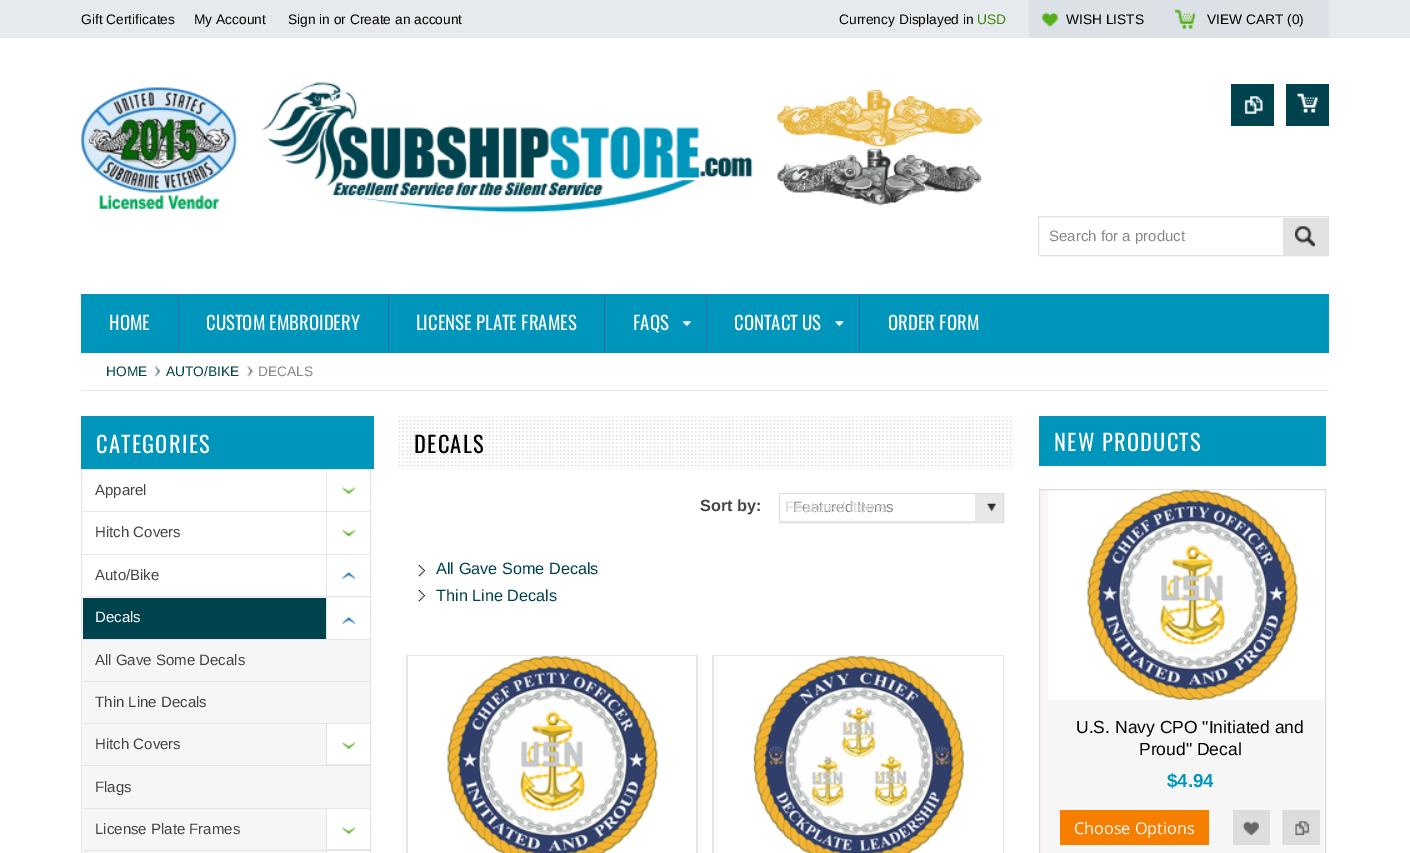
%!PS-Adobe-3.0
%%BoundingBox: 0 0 1410 853
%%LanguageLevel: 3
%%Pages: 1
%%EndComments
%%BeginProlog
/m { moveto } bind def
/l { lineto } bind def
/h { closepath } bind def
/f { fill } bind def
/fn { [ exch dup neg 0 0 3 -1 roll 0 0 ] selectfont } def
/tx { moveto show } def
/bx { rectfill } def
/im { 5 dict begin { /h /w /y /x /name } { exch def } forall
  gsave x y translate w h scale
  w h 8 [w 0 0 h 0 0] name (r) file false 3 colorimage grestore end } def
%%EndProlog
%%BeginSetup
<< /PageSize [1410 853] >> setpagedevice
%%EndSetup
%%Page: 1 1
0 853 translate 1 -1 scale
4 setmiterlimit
1 setgray
0 0 1410 853 bx
0.902 0.918 0.929 setrgbcolor
0 0 1410 38 bx
/LiberationSans-Regular 13.75 fn
0 setgray
(Gift Certificates) 81 24 tx
(My Account) 194 24 tx
(Sign in or Create an account) 288 24 tx
0.859 0.882 0.902 setrgbcolor
1029 0 300 38 bx
0 setgray
(Currency Displayed in) 839 24 tx
0.247 0.522 0.067 setrgbcolor
(USD) 977 24 tx
(image0.raw) 1041 12 18 15 im
0 setgray
(WISH LISTS) 1066 24 tx
(image1.raw) 1175 8 20 21 im
(VIEW CART \(0\)) 1207 24 tx
(image2.raw) 81 82 902 131 im
0 0.259 0.306 setrgbcolor
1231 84 43 42 bx
(image3.raw) 1244 96 19 18 im
1286 84 43 42 bx
(image4.raw) 1297 93 21 20 im
0.886 setgray
1038.5 216.5 290 39 rectstroke
/LiberationSans-Regular 15 fn
0.533 setgray
(Search for a product) 1049 241 tx
0.886 setgray
1283 218 45 37 bx
(image5.raw) 1295 226 20 21 im
0 0.584 0.733 setrgbcolor
81 294 1248 59 bx
/Oswald-Regular 18.75 fn
1 setgray
(HOME) 109 330 tx
0.216 0.424 0.647 setrgbcolor
178 294 1 59 bx
1 setgray
(CUSTOM EMBROIDERY) 206 330 tx
0.216 0.424 0.647 setrgbcolor
388 294 1 59 bx
1 setgray
(LICENSE PLATE FRAMES) 416 330 tx
0.216 0.424 0.647 setrgbcolor
604 294 1 59 bx
1 setgray
(FAQS) 633 330 tx
(image6.raw) 682 321 10 6 im
0.216 0.424 0.647 setrgbcolor
706 294 1 59 bx
1 setgray
(CONTACT US) 734 330 tx
(image7.raw) 835 321 9 6 im
0.216 0.424 0.647 setrgbcolor
859 294 1 59 bx
1 setgray
(ORDER FORM) 888 330 tx
0.91 setgray
81 390 1248 1 bx
(image8.raw) 155 366 5 11 im
/LiberationSans-Regular 13.75 fn
0 0.259 0.306 setrgbcolor
(HOME) 106 376 tx
(image9.raw) 247 366 6 11 im
(AUTO/BIKE) 166 376 tx
0.533 setgray
(DECALS) 258 376 tx
0 0.584 0.733 setrgbcolor
81 416 293 53 bx
/Oswald-Regular 22.5 fn
1 setgray
96 453 m 1.25 0 (CATEGORIES) ashow
0.898 setgray
81.5 469.5 289 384 rectstroke
83 511 287 1 bx
/LiberationSans-Regular 15 fn
0.267 setgray
(Apparel) 95 495 tx
(image10.raw) 342 487 13 7 im
0.898 setgray
326 470 1 43 bx
83 554 287 1 bx
0.267 setgray
(Hitch Covers) 95 537 tx
(image11.raw) 342 529 13 8 im
0.898 setgray
326 513 1 42 bx
0.267 setgray
(Auto/Bike) 95 580 tx
(image12.raw) 342 572 13 7 im
0.965 setgray
83 597 287 256 bx
0.898 setgray
326 555 1 84 bx
83 596 287 1 bx
0 0.259 0.306 setrgbcolor
83 598 243 41 bx
1 setgray
(Decals) 95 622 tx
327 598 43 41 bx
(image12.raw) 342 617 13 7 im
0.898 setgray
83 639 287 1 bx
0.267 setgray
(All Gave Some Decals) 95 665 tx
0.898 setgray
83 681 287 1 bx
0.267 setgray
(Thin Line Decals) 95 707 tx
0.898 setgray
83 723 287 1 bx
0.267 setgray
(Hitch Covers) 95 749 tx
1 setgray
327 724 43 40 bx
(image10.raw) 342 742 13 7 im
0.898 setgray
326 764 44 1 bx
326 724 1 41 bx
83 765 287 1 bx
0.267 setgray
(Flags) 95 792 tx
0.898 setgray
83 808 287 1 bx
0.267 setgray
(License Plate Frames) 95 834 tx
1 setgray
327 809 43 40 bx
(image10.raw) 342 827 13 7 im
0.898 setgray
326 849 44 1 bx
326 809 1 41 bx
83 850 287 1 bx
1 setgray
326 851 44 2 bx
0.898 setgray
326 851 1 2 bx
(image13.raw) 399 416 615 53 im
/Oswald-Regular 22.5 fn
0 setgray
414 453 m 1.25 0 (DECALS) ashow
/LiberationSans-Bold 16.25 fn
0.267 setgray
(Sort by:) 700 511 tx
0.91 setgray
780 494 223 28 bx
(image14.raw) 987 503 10 9 im
0.867 setgray
779.5 493.5 224 29 rectstroke
1 setgray
780 494 195 27 bx
/LiberationSans-Regular 15 fn
0.533 setgray
(Featured Items) 793 512 tx
0.843 setgray
(Featured Items) 785 512 tx
(image15.raw) 418 565 7 12 im
/LiberationSans-Regular 16.25 fn
0 0.259 0.306 setrgbcolor
(All Gave Some Decals) 436 574 tx
(image15.raw) 418 590 7 12 im
(Thin Line Decals) 436 601 tx
0.898 setgray
406 655 292 1 bx
698 655 m 698 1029 l 696 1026 l 696 656 l h f
406 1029 m 406 655 l 408 656 l 408 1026 l h f
(image16.raw) 447 656 211 197 im
713 655 291 1 bx
1004 655 m 1004 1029 l 1002 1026 l 1002 656 l h f
712 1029 m 712 655 l 714 656 l 714 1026 l h f
1 setgray
1002 656 1 197 bx
(image17.raw) 753 656 211 197 im
0 0.584 0.733 setrgbcolor
1039 416 287 50 bx
/Oswald-Regular 22.5 fn
1 setgray
1054 451 m 1.25 0 (NEW PRODUCTS) ashow
0.988 0.961 0.969 setrgbcolor
1040 490 8 363 bx
0.867 setgray
1039.5 489.5 286 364 rectstroke
0.965 setgray
1048 700 277 153 bx
(image18.raw) 1087 490 211 210 im
/LiberationSans-Regular 17.5 fn
0 setgray
(U.S. Navy CPO "Initiated and) 1076 733 tx
(Proud" Decal) 1139 755 tx
/LiberationSans-Bold 18.75 fn
0 0.584 0.733 setrgbcolor
($4.94) 1167 787 tx
0.969 0.498 0 setrgbcolor
1060 810 149 35 bx
/OpenSans-Regular 16.25 fn
1 setgray
(Choose Options) 1074 834 tx
0.867 setgray
1233 810 37 35 bx
(image19.raw) 1242 821 18 15 im
1310 810 10 35 bx
(image20.raw) 1282 810 28 35 im
0.839 setgray
1283 810 1 35 bx
showpage
%%EOF
